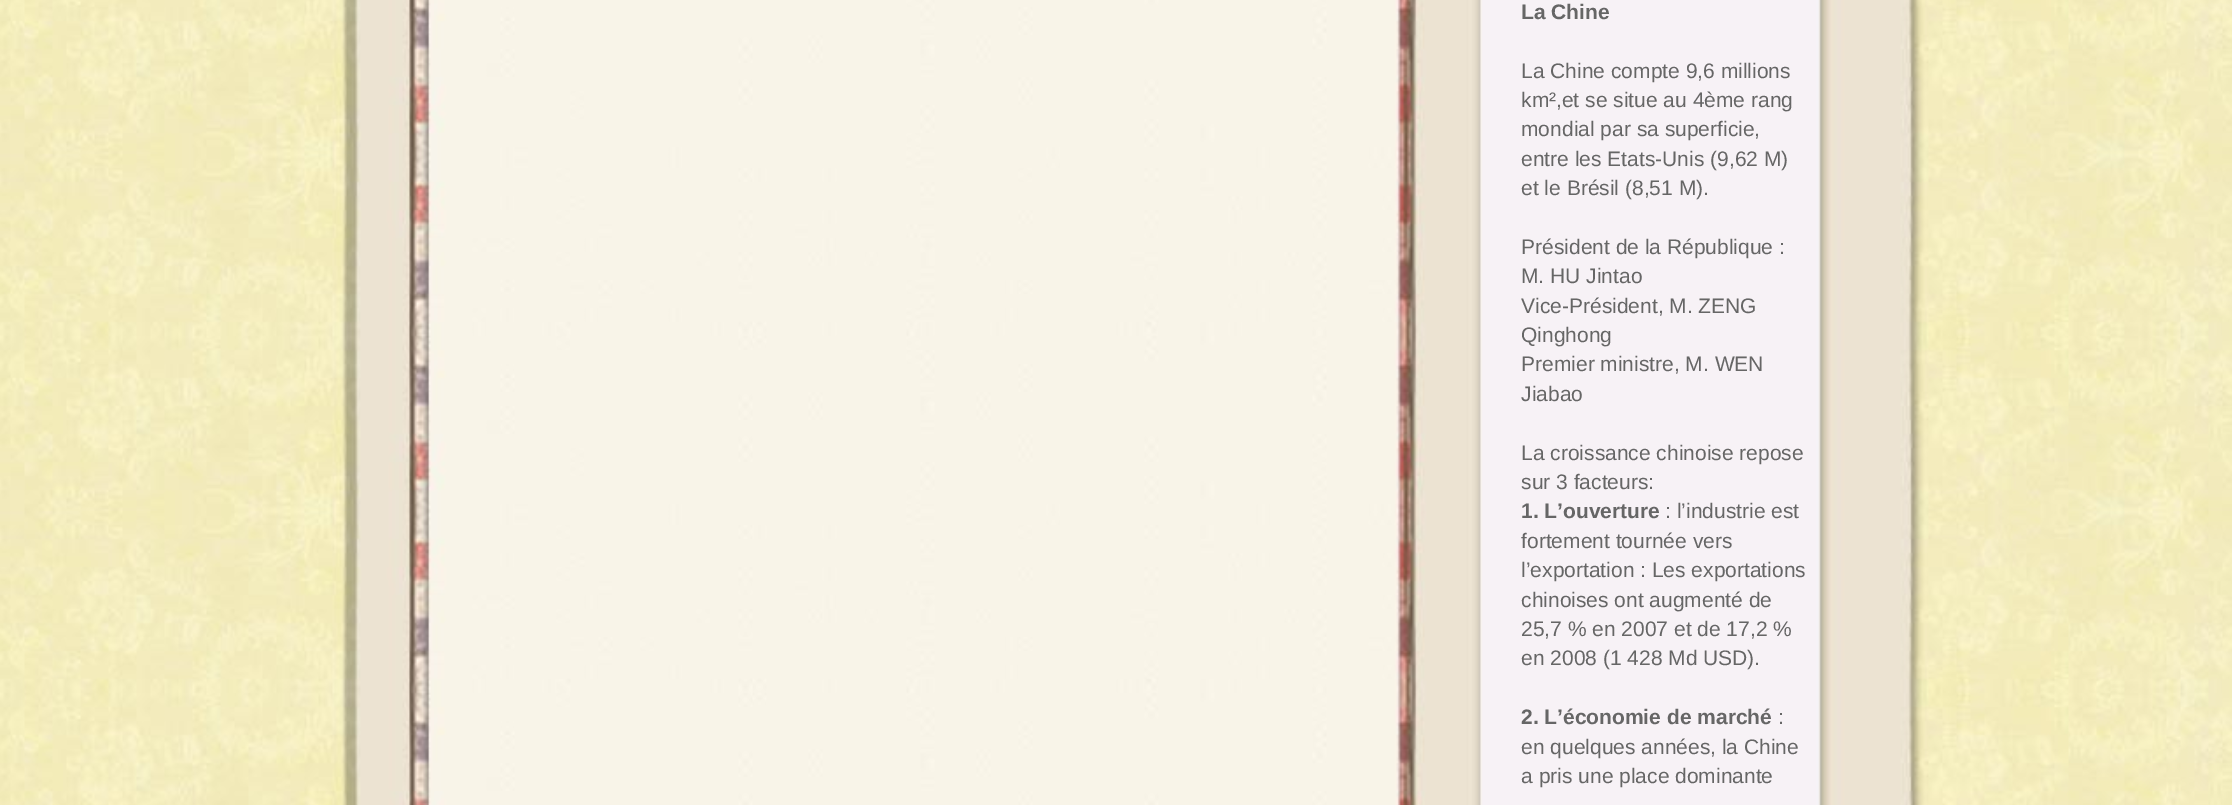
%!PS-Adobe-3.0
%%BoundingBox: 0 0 2232 805
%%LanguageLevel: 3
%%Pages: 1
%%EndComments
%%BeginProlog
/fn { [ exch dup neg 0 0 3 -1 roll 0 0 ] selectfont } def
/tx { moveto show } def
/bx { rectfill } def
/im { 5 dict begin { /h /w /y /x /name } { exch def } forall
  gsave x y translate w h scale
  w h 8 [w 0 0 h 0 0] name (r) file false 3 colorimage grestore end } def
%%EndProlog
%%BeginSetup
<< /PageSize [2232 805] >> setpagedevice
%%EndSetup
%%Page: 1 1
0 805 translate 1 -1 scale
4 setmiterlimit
1 setgray
0 0 2232 805 bx
(image0.raw) 0 0 2232 805 im
/LiberationSans-Bold 21 fn
0.4 setgray
(La Chine) 1521 19 tx
/LiberationSans-Regular 21 fn
(La Chine compte 9,6 millions) 1521 78 tx
(km²,et se situe au 4ème rang) 1521 107 tx
(mondial par sa superficie,) 1521 136 tx
(entre les Etats-Unis \(9,62 M\)) 1521 166 tx
(et le Brésil \(8,51 M\).) 1521 195 tx
(Président de la République :) 1521 254 tx
(M. HU Jintao) 1521 283 tx
(Vice-Président, M. ZENG) 1521 313 tx
(Qinghong) 1521 342 tx
(Premier ministre, M. WEN) 1521 371 tx
(Jiabao) 1521 401 tx
(La croissance chinoise repose) 1521 460 tx
(sur 3 facteurs:) 1521 489 tx
/LiberationSans-Bold 21 fn
(1. L’ouverture) 1521 518 tx
/LiberationSans-Regular 21 fn
(: l’industrie est) 1665 518 tx
(fortement tournée vers) 1521 548 tx
(l’exportation : Les exportations) 1521 577 tx
(chinoises ont augmenté de) 1521 607 tx
(25,7 % en 2007 et de 17,2 %) 1521 636 tx
(en 2008 \(1 428 Md USD\).) 1521 665 tx
/LiberationSans-Bold 21 fn
(2. L’économie de marché) 1521 724 tx
/LiberationSans-Regular 21 fn
(:) 1778 724 tx
(en quelques années, la Chine) 1521 754 tx
(a pris une place dominante) 1521 783 tx
showpage
%%EOF
